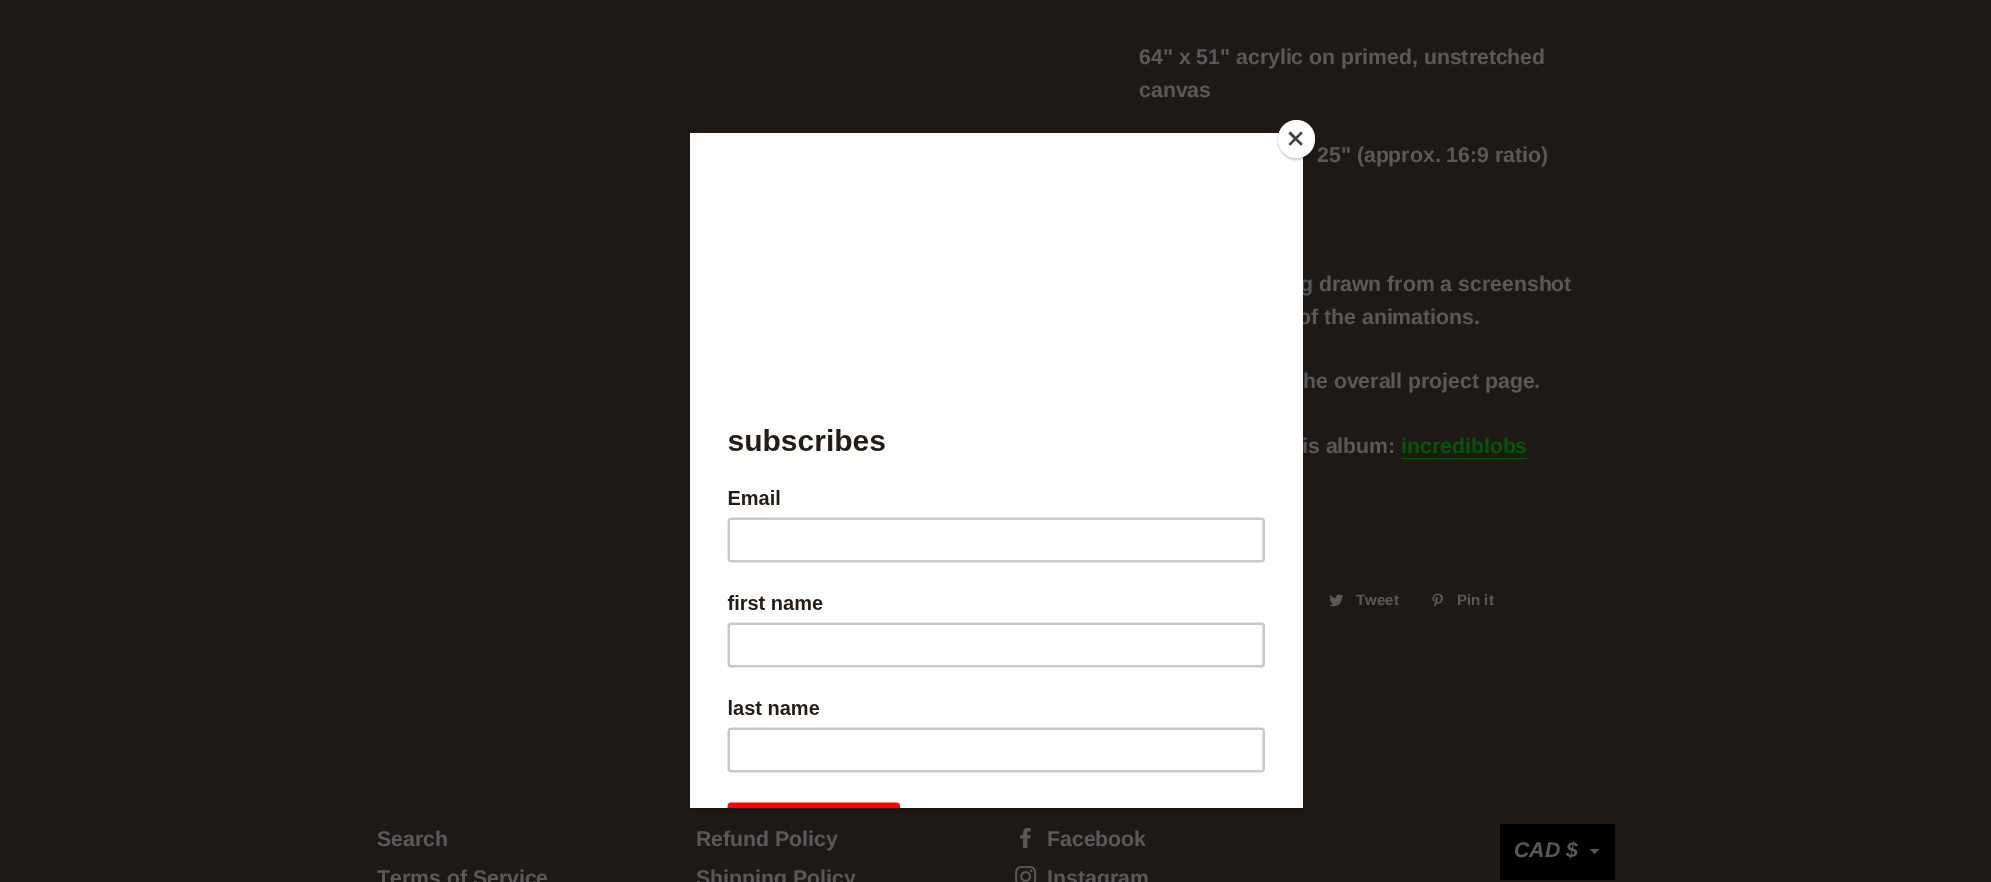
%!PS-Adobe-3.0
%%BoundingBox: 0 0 1991 882
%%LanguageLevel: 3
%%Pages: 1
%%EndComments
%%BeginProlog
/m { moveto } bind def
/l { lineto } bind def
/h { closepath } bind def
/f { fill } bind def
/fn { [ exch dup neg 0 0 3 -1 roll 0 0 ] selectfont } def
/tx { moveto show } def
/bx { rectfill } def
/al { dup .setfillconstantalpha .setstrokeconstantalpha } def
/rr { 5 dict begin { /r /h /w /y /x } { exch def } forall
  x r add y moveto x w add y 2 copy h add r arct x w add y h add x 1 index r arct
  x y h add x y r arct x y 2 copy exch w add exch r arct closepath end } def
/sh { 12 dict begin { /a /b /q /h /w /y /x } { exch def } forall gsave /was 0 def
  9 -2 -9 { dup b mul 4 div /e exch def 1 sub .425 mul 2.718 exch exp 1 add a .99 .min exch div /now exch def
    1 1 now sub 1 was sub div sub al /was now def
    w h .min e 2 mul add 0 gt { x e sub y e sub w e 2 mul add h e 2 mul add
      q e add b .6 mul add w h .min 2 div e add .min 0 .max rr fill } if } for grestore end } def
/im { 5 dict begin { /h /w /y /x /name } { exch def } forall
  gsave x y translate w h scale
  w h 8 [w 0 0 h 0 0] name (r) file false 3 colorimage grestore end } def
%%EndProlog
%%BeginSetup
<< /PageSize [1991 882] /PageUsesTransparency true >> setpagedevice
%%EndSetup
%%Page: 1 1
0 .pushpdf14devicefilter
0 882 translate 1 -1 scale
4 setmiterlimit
0.122 0.098 0.086 setrgbcolor
0 0 1991 882 bx
/LiberationSans-Bold 21.25 fn
0.349 setgray
(64" x 51" acrylic on primed, unstretched) 1139 64 tx
(canvas) 1139 97 tx
(25" \(approx. 16:9 ratio\)) 1317 162 tx
(g drawn from a screenshot) 1300 291 tx
(of the animations.) 1298 324 tx
(he overall project page.) 1303 388 tx
(is album:) 1302 453 tx
0 0.349 0 setrgbcolor
(incrediblobs) 1401 453 tx
1401 458 127 1 bx
(image0.raw) 1329 594 15 13 im
/LiberationSans-Bold 15 fn
0.349 setgray
(Tweet) 1356 605 tx
(image1.raw) 1432 593 11 15 im
(Pin it) 1457 605 tx
/LiberationSans-Bold 21.25 fn
(Search) 377 846 tx
(Terms of Service) 377 885 tx
(Refund Policy) 696 846 tx
(Shipping Policy) 696 885 tx
(image2.raw) 1020 828 11 20 im
(Facebook) 1047 846 tx
(image3.raw) 1015 866 22 16 im
(Instagram) 1047 885 tx
0 setgray
1500 824 115 56 bx
0.349 setgray
1590 849 m 1594.5 854 l 1599 849 l h f
/LiberationSans-BoldItalic 21.25 fn
(CAD $) 1514 857 tx
0 setgray
690 135 613 675 0 2.5 0.2 sh
(image4.raw) 690 133 613 675 im
1278 123 37 37 18.5 1 0.2 sh
1 setgray
1278 120 37 38 18.5 rr f
0.255 setgray
1301 131.5 m 1302.5 133.5 l 1290.5 145.5 l 1288.5 144 l h f
1288.5 133.5 m 1290.5 131.5 l 1302.5 144 l 1301 145.5 l h f
.poppdf14devicefilter showpage
%%EOF
